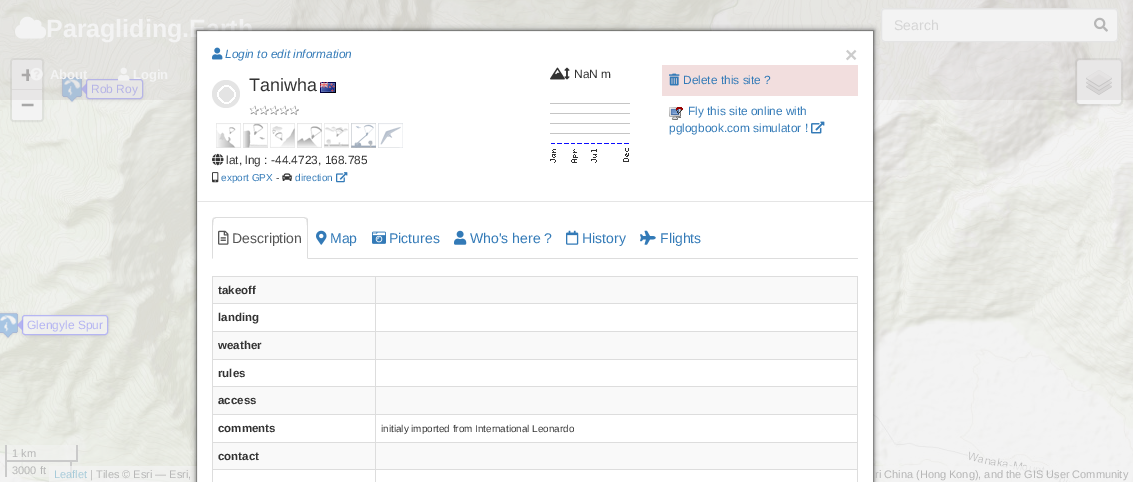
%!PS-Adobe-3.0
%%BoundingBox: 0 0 1133 482
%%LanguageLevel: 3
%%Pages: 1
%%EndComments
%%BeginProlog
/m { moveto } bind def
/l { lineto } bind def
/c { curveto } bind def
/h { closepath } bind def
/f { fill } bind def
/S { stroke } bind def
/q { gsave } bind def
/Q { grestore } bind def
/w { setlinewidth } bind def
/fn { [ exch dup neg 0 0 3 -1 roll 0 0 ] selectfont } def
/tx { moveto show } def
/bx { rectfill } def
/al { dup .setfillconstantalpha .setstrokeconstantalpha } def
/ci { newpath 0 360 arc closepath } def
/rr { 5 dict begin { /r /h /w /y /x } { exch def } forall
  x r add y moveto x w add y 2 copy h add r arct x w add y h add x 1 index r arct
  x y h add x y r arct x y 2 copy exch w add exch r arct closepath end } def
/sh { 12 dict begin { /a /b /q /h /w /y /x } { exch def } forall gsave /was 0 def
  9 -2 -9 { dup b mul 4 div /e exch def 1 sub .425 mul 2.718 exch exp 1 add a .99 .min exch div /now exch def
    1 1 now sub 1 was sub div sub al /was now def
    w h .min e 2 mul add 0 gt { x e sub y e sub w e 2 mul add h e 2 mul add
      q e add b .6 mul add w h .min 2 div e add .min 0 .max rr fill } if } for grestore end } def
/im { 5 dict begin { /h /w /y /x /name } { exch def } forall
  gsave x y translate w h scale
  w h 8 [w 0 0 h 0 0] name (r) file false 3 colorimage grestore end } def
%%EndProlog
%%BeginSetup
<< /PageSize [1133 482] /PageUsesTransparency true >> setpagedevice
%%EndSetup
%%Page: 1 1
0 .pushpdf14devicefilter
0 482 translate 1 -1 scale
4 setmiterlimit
1 setgray
0 0 1133 482 bx
(image26.raw) 0 0 107 183 im
0.2 al
0.655 setgray
2 w
11 59 32 62 3 rr S
1 al
0.953 setgray
14 60 m 40 60 l 41 60 42 61 42 62 c 42 90 l 12 90 l 12 62 l 12 61 13 60 14 60 c h f
0.894 setgray
12 89 30 1 bx
/DejaVuSansMono-Bold 22 fn
0.655 setgray
(+) 21 82 tx
0.953 setgray
12 90 m 42 90 l 42 118 l 42 119 41 120 40 120 c 14 120 l 13 120 12 119 12 118 c h f
(image30.raw) 875 0 256 183 im
1077 60 44 44 3 rr f
0.2 al
0.655 setgray
1076 59 46 46 4 rr S
1 al
(image25.raw) 1086 70 26 25 im
(image27.raw) 107 0 256 183 im
(image28.raw) 363 0 256 31 im
(image29.raw) 619 0 256 183 im
(image31.raw) 1131 0 2 183 im
(image42.raw) 60 75 24 28 im
q
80 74 m 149 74 l 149 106 l 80 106 l h 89 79 m 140 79 l 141.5 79 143 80.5 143 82 c 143 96 l 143 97.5 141.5 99 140 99 c 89 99 l 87.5 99 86 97.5 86 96 c 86 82 l 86 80.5 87.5 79 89 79 c h eoclip newpath
86 80 57 20 3 1.5 0.32 sh
Q
0.8 al
0.953 setgray
86 79 57 20 3 rr f
0.655 0.655 0.953 setrgbcolor
1 w
86.5 79.5 56 19 2.5 rr S
87 83 m 87 95 l 81 89 l h f
/LiberationSans-Regular 12 fn
1 al
0.71 0.71 0.949 setrgbcolor
(Rob Roy) 91 93 tx
0.18 al
0.714 0.682 0.682 setrgbcolor
0 0 1133 100 bx
1 al
(image0.raw) 15 16 32 23 im
/LiberationSans-Bold 25 fn
0.953 setgray
(Paragliding.Earth) 46 37 tx
881 8 237 34 4 rr f
0.929 setgray
885 10 m 1114 10 l 1116 10 1117 11 1117 13 c 1117 11 1116 9 1114 9 c 885 9 l 883 9 882 11 882 13 c 882 11 883 10 885 10 c h f
0.894 setgray
881.5 8.5 236 33 3.5 rr S
/LiberationSans-Regular 14 fn
0.835 setgray
(Search) 894 30 tx
(image1.raw) 1094 17 14 15 im
(image2.raw) 30 67 13 14 im
/LiberationSans-Bold 13 fn
0.953 setgray
(About) 50 79 tx
(image3.raw) 118 67 12 14 im
(Login) 133 79 tx
(image37.raw) 0 439 107 43 im
0.5 al
7 462 63 15 bx
1 al
0.792 setgray
5 445 2 17 bx
5 460 67 2 bx
70 460 2 17 bx
(image38.raw) 107 439 90 43 im
(image39.raw) 873 439 2 43 im
(image40.raw) 875 439 256 43 im
(image41.raw) 1131 439 2 43 im
0.7 al
0.953 setgray
49 466 1084 16 bx
1 al
(image33.raw) 107 183 90 256 im
(image34.raw) 873 183 2 256 im
(image35.raw) 875 183 256 256 im
0 setgray
196 30 678 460 0 2.5 0.5 sh
1 setgray
197 31 676 451 bx
0.2 al
0 setgray
196.5 30.5 677 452 rectstroke
1 al
0.898 setgray
197 201 676 1 bx
(image4.raw) 212 47 11 13 im
/LiberationSans-Italic 11.9 fn
0.2 0.478 0.718 setrgbcolor
(Login to edit information) 225 58 tx
0.894 setgray
226 94 14 ci f
(image5.raw) 217 85 19 19 im
/LiberationSans-Regular 18 fn
0.2 setgray
(Taniwha) 249 91 tx
(image6.raw) 320 82 16 11 im
(image7.raw) 249 105 50 10 im
(image8.raw) 216 123 187 25 im
(image9.raw) 212 153 12 13 im
/LiberationSans-Regular 11.9 fn
(lat, lng : -44.4723, 168.785) 226 164 tx
(image10.raw) 212 172 7 11 im
/LiberationSans-Regular 10 fn
0.2 0.478 0.718 setrgbcolor
(export GPX) 221 181 tx
0.2 setgray
(-) 276 181 tx
(image11.raw) 282 173 11 8 im
0.2 0.478 0.718 setrgbcolor
(direction) 295 181 tx
(image12.raw) 336 172 12 11 im
(image13.raw) 550 67 15 13 im
(image14.raw) 564 67 6 13 im
/LiberationSans-Regular 11.9 fn
0.2 setgray
(NaN m) 574 78 tx
(image15.raw) 550 103 80 60 im
0.949 0.871 0.871 setrgbcolor
662 65 196 31 bx
(image16.raw) 669 73 11 13 im
0.2 0.478 0.718 setrgbcolor
(Delete this site ?) 683 84 tx
(image17.raw) 669 107 14 13 im
(Fly this site online with) 688 115 tx
(pglogbook.com simulator !) 669 132 tx
(image18.raw) 811 121 14 13 im
/LiberationSans-Bold 21 fn
0.8 setgray
(×) 845 62 tx
0.867 setgray
308 258 550 1 bx
216 217 m 213 218 l 214 219 l 216 218 l 304 218 l 306 219 l 307 218 l 304 217 l h f
308 259 m 308 221 l 308 220 308 219 307 218 c 306 219 l 308 221 307 253 307 258 c h f
212 259 m 213 258 l 213 253 212 221 214 219 c 213 218 l 212 221 l h f
(image19.raw) 218 230 11 15 im
/LiberationSans-Regular 14 fn
0.333 setgray
(Description) 232 243 tx
(image20.raw) 316 230 11 15 im
0.2 0.478 0.718 setrgbcolor
(Map) 330 243 tx
(image21.raw) 372 231 14 13 im
(Pictures) 389 243 tx
(image22.raw) 454 230 13 15 im
(Who's here ?) 470 243 tx
(image23.raw) 566 230 13 15 im
(History) 582 243 tx
(image24.raw) 640 230 16 15 im
(Flights) 660 243 tx
0.867 setgray
212 276 646 1 bx
857 276 1 206 bx
212 276 1 206 bx
0.976 setgray
213 277 644 26 bx
/LiberationSans-Bold 11.5 fn
0.2 setgray
(takeoff) 218 294 tx
0.867 setgray
375 303 483 1 bx
375 331 483 1 bx
0.976 setgray
213 332 644 27 bx
0.867 setgray
375 359 483 1 bx
375 386 483 1 bx
0.976 setgray
213 387 644 27 bx
0.867 setgray
375 414 483 1 bx
375 442 483 1 bx
0.976 setgray
213 443 644 26 bx
0.867 setgray
375 469 483 1 bx
375 469 1 13 bx
212 469 164 1 bx
375 442 1 28 bx
212 442 164 1 bx
375 414 1 29 bx
212 414 164 1 bx
375 386 1 29 bx
212 386 164 1 bx
375 359 1 28 bx
212 359 164 1 bx
375 331 1 29 bx
212 331 164 1 bx
375 303 1 29 bx
212 303 164 1 bx
375 276 1 28 bx
0.2 setgray
(landing) 218 321 tx
(weather) 218 349 tx
(rules) 218 377 tx
(access) 218 404 tx
(comments) 218 432 tx
/LiberationSans-Regular 9.9 fn
(initialy imported from International Leonardo) 381 432 tx
/LiberationSans-Bold 11.5 fn
(contact) 218 460 tx
/DejaVuSansMono-Bold 22 fn
0.655 setgray
(−) 21 112 tx
0.5 al
0.953 setgray
7 445 69 15 bx
1 al
0.792 setgray
76 445 2 17 bx
72 460 6 2 bx
/LiberationSans-Regular 11 fn
0.714 setgray
(1 km) 12 457 tx
0.792 setgray
5 460 2 17 bx
0.714 setgray
(3000 ft) 12 474 tx
0.655 0.796 0.851 setrgbcolor
(Leaflet) 54 478 tx
0.714 setgray
(| Tiles © Esri — Esri,) 90 478 tx
(ri China \(Hong Kong\), and the GIS User Community) 875 478 tx
(image32.raw) 0 183 107 256 im
(image36.raw) 1131 183 2 256 im
(image43.raw) 0 311 20 28 im
q
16 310 m 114 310 l 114 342 l 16 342 l h 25 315 m 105 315 l 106.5 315 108 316.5 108 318 c 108 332 l 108 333.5 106.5 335 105 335 c 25 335 l 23.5 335 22 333.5 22 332 c 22 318 l 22 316.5 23.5 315 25 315 c h eoclip newpath
0.655 setgray
22 316 86 20 3 1.5 0.32 sh
Q
0.8 al
0.953 setgray
22 315 86 20 3 rr f
0.655 0.655 0.953 setrgbcolor
22.5 315.5 85 19 2.5 rr S
23 319 m 23 331 l 17 325 l h f
/LiberationSans-Regular 12 fn
1 al
0.71 0.71 0.949 setrgbcolor
(Glengyle Spur) 27 329 tx
.poppdf14devicefilter showpage
%%EOF
